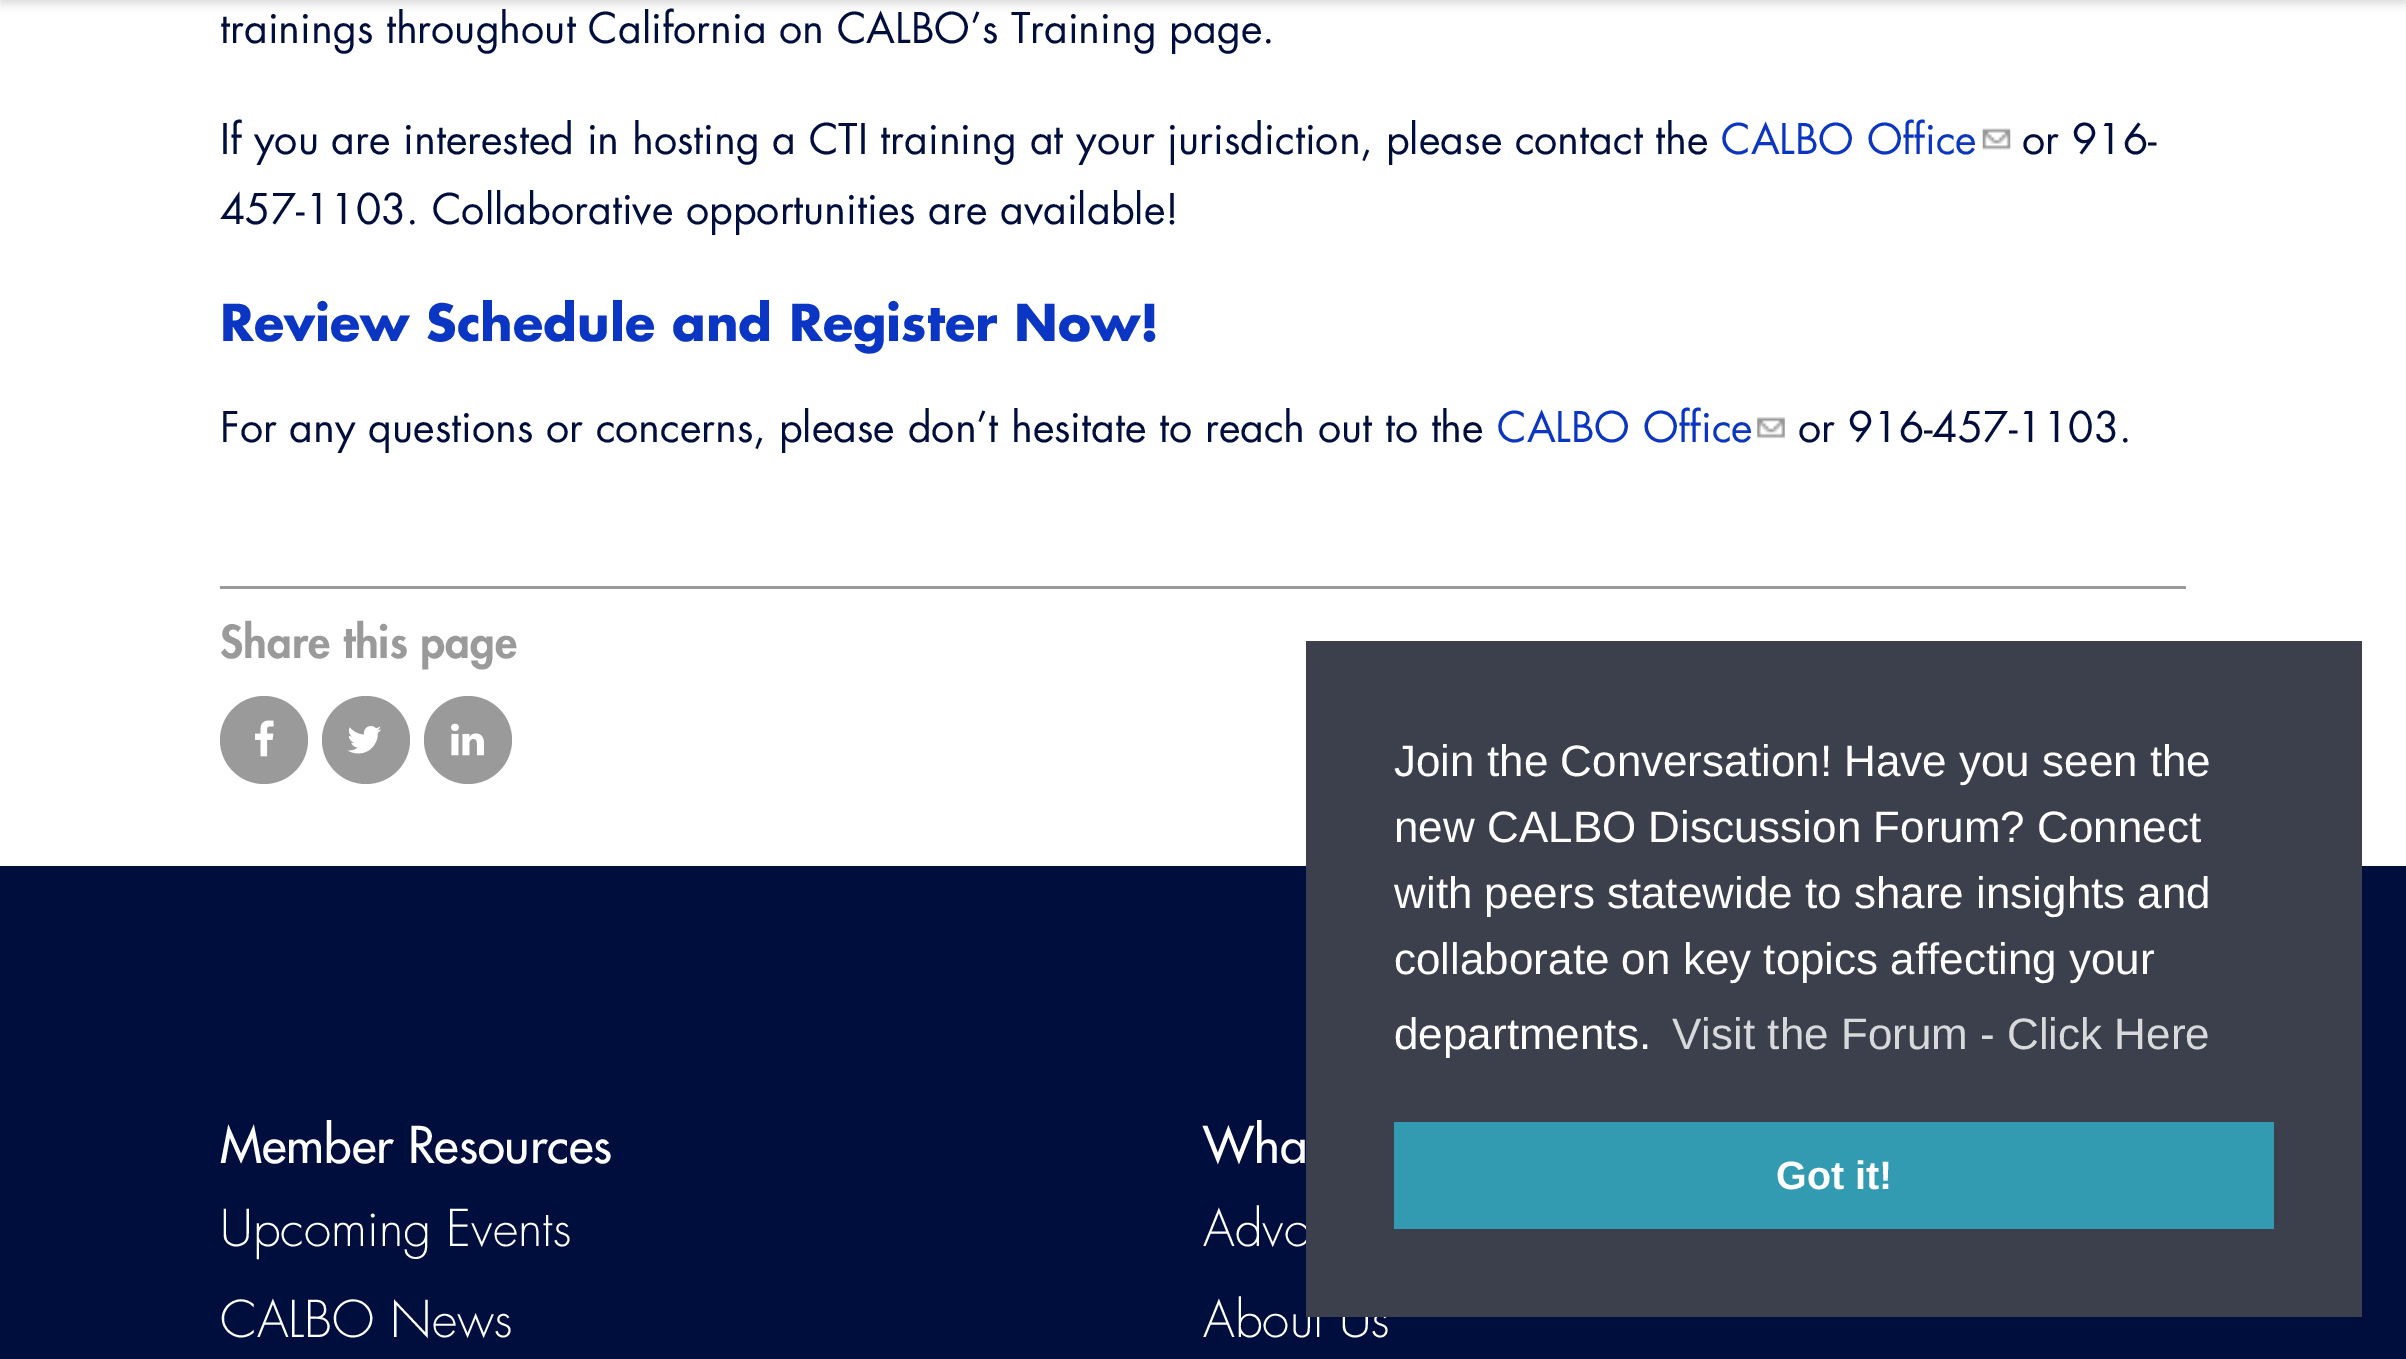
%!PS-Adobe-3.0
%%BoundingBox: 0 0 2406 1359
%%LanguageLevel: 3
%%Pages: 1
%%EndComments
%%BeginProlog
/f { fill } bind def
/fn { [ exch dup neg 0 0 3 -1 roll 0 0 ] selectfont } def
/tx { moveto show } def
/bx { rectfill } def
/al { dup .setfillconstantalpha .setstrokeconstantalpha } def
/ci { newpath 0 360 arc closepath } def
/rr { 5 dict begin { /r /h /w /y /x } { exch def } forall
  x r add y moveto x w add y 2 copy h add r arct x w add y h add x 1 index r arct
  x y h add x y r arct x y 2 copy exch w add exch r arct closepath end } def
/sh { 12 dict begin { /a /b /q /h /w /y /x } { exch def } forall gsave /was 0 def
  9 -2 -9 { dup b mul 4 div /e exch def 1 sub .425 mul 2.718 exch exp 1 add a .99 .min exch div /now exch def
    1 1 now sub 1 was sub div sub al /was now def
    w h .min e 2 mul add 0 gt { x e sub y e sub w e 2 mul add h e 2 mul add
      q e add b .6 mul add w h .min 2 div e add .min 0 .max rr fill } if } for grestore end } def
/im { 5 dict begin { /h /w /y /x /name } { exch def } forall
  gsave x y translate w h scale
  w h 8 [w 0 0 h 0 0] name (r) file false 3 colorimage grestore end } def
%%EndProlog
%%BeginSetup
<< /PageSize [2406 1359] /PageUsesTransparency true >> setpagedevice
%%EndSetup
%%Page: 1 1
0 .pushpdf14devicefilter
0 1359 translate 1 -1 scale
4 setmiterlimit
1 setgray
0 0 2406 1359 bx
0 setgray
0 -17 2406 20 0 5.5 0.16 sh
/Futura-Regular 41.25 fn
0 0.055 0.243 setrgbcolor
(trainings throughout California on CALBO’s Training page.) 220 43 tx
(If you are interested in hosting a CTI training at your jurisdiction, please contact the) 220 154 tx
0.043 0.212 0.769 setrgbcolor
(CALBO Office) 1721 154 tx
(image0.raw) 1982 128 29 22 im
0 0.055 0.243 setrgbcolor
(or 916-) 2022 154 tx
(457-1103. Collaborative opportunities are available!) 220 224 tx
/Futura-Bold 49.5 fn
0.043 0.212 0.769 setrgbcolor
(Review Schedule and Register Now!) 220 341 tx
/Futura-Regular 41.25 fn
0 0.055 0.243 setrgbcolor
(For any questions or concerns, please don’t hesitate to reach out to the) 220 442 tx
0.043 0.212 0.769 setrgbcolor
(CALBO Office) 1497 442 tx
(image1.raw) 1757 417 28 22 im
0 0.055 0.243 setrgbcolor
(or 916-457-1103.) 1798 442 tx
0.604 setgray
220 586 1966 3 bx
/Futura-Black 44 fn
(Share this page) 220 658 tx
264 740 44 ci f
(image2.raw) 255 720 19 37 im
366 740 44 ci f
(image3.raw) 347 726 35 28 im
468 740 44 ci f
(image4.raw) 451 723 33 33 im
0 0.055 0.243 setrgbcolor
0 866 2406 493 bx
/Futura-Medium 49.5 fn
1 setgray
(Member Resources) 220 1163 tx
/Futura-Light 49.5 fn
(Upcoming Events) 220 1246 tx
(CALBO News) 220 1337 tx
/Futura-Medium 49.5 fn
(Wha) 1203 1163 tx
/Futura-Light 49.5 fn
(Advo) 1203 1246 tx
(About Us) 1203 1337 tx
0.235 0.251 0.302 setrgbcolor
1306 641 1056 676 bx
/LiberationSans-Regular 44 fn
1 setgray
(Join the Conversation! Have you seen the) 1394 776 tx
(new CALBO Discussion Forum? Connect) 1394 842 tx
(with peers statewide to share insights and) 1394 908 tx
(collaborate on key topics affecting your) 1394 974 tx
(departments.) 1394 1049 tx
0.847 0.851 0.859 setrgbcolor
(Visit the Forum - Click Here) 1672 1049 tx
0.196 0.608 0.698 setrgbcolor
1394 1122 880 107 bx
/LiberationSans-Bold 39.5 fn
1 setgray
(Got it!) 1776 1189 tx
.poppdf14devicefilter showpage
%%EOF
